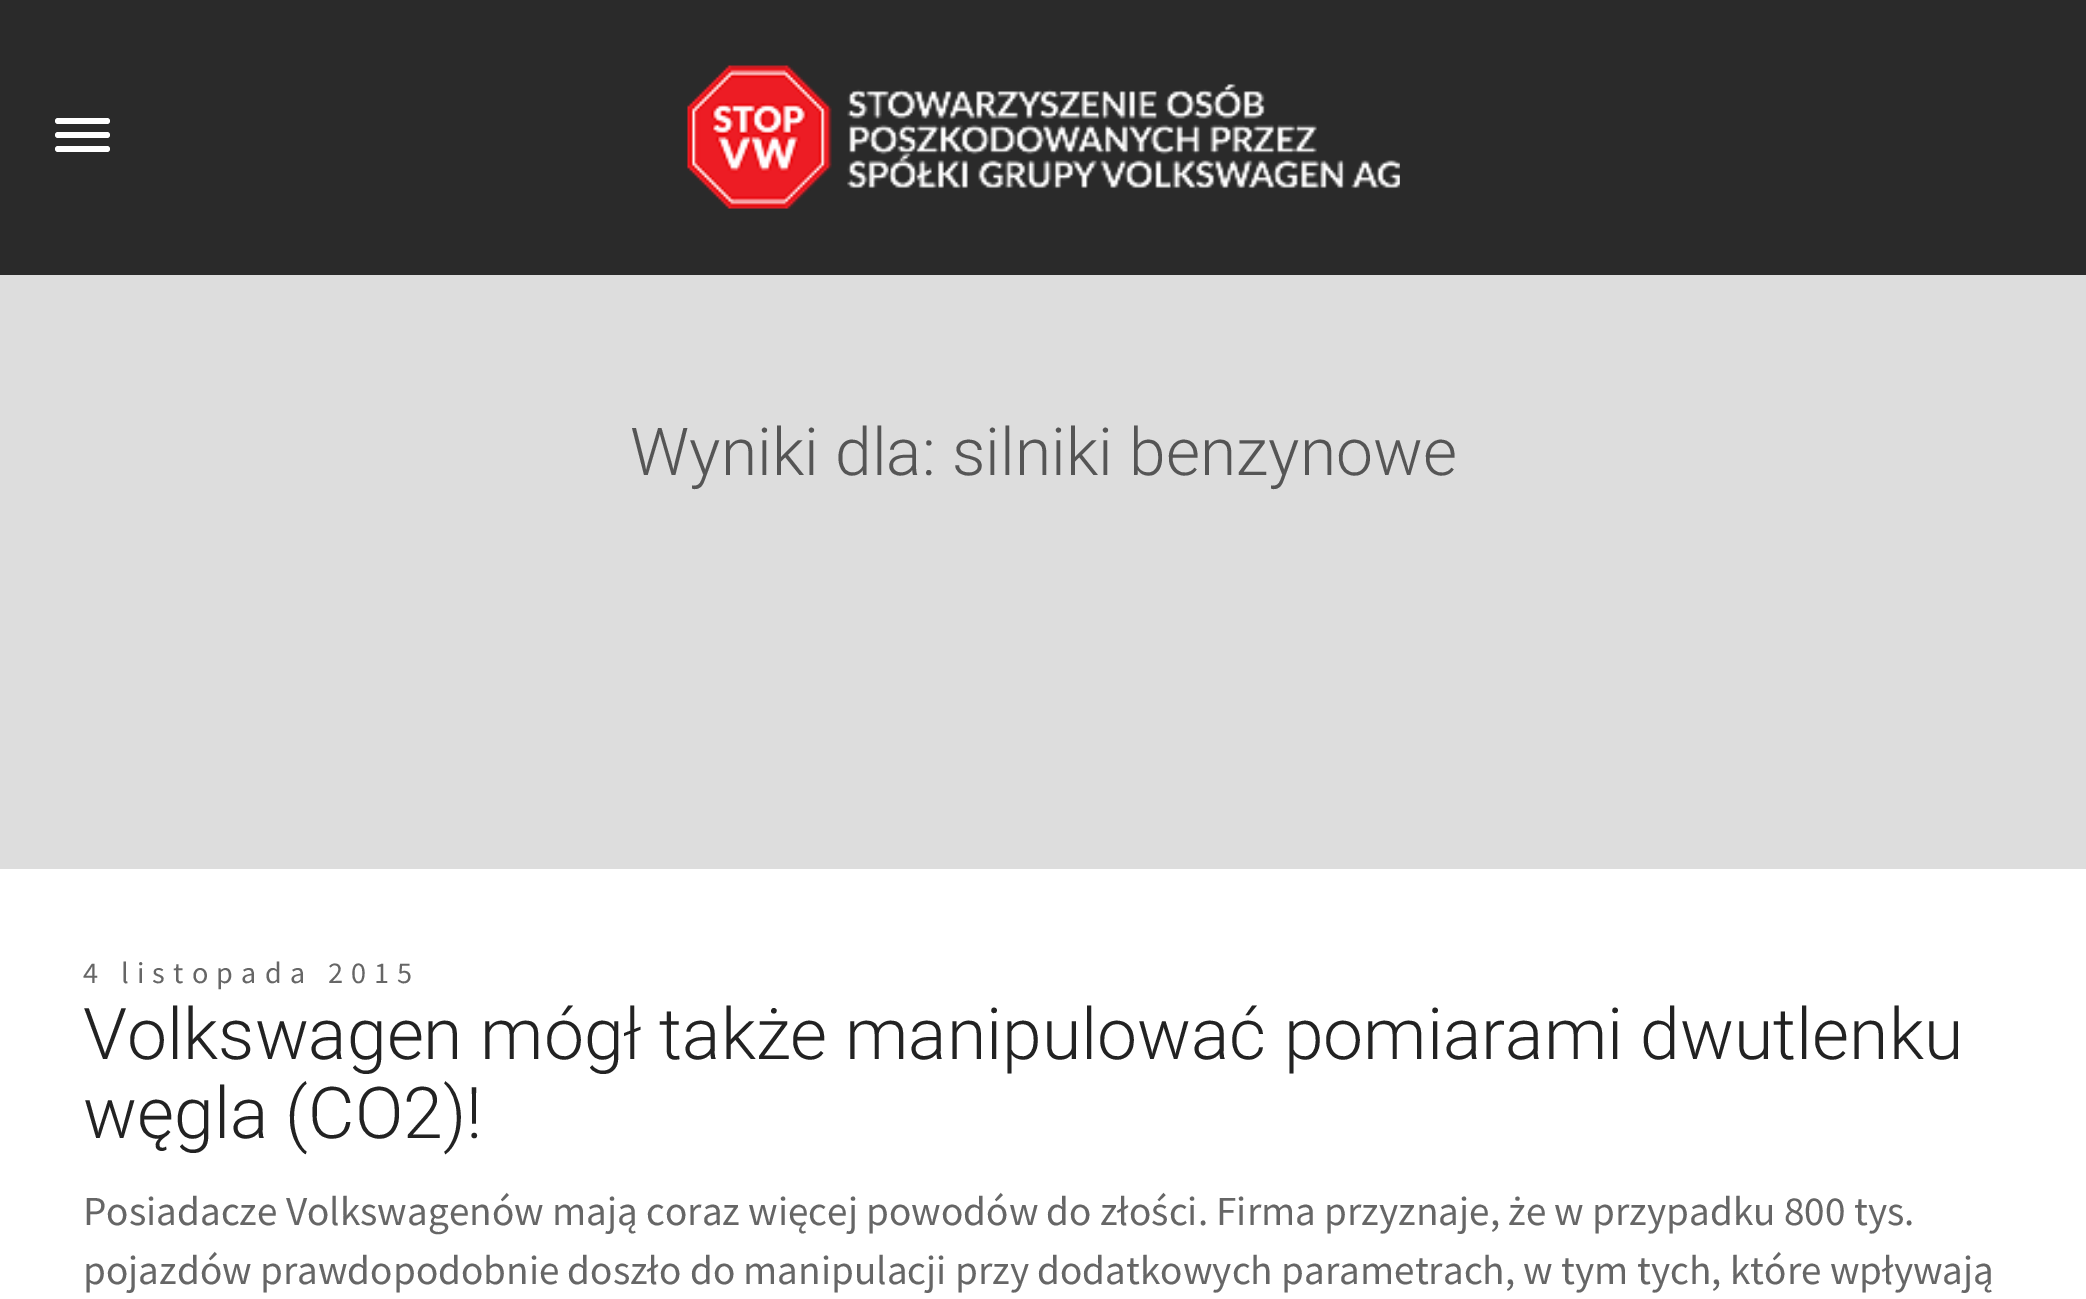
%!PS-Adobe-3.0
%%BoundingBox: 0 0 2086 1299
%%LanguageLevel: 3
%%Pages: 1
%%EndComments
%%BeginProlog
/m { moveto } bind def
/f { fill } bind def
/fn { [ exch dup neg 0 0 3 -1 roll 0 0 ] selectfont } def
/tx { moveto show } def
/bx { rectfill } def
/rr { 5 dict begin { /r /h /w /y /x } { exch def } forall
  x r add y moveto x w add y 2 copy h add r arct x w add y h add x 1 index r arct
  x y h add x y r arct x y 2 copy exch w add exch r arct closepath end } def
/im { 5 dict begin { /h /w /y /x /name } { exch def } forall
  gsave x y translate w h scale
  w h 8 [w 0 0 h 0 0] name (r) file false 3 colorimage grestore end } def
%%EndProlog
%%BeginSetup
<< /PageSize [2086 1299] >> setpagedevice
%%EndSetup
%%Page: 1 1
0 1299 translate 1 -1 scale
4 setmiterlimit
0.165 setgray
0 0 2086 1299 bx
1 setgray
55 118 55 6 3 rr f
55 132 55 6 3 rr f
55 146 55 6 3 rr f
(image0.raw) 687 65 713 144 im
0.867 setgray
0 275 2086 594 bx
/Roboto-Light 66 fn
0.333 setgray
(Wyniki dla: silniki benzynowe) 630 475 tx
1 setgray
0 869 2086 430 bx
/SourceSansPro-Regular 30.25 fn
0.4 setgray
83 983 m 8.25 0 (4 listopada 2015) ashow
/Roboto-Light 71.5 fn
0.133 setgray
(Volkswagen mógł także manipulować pomiarami dwutlenku) 83 1059 tx
(węgla \(CO2\)!) 83 1138 tx
/SourceSansPro-Regular 41.25 fn
0.4 setgray
(Posiadacze Volkswagenów mają coraz więcej powodów do złości. Firma przyznaje, że w przypadku 800 tys.) 83 1225 tx
(pojazdów prawdopodobnie doszło do manipulacji przy dodatkowych parametrach, w tym tych, które wpływają) 83 1284 tx
showpage
%%EOF
